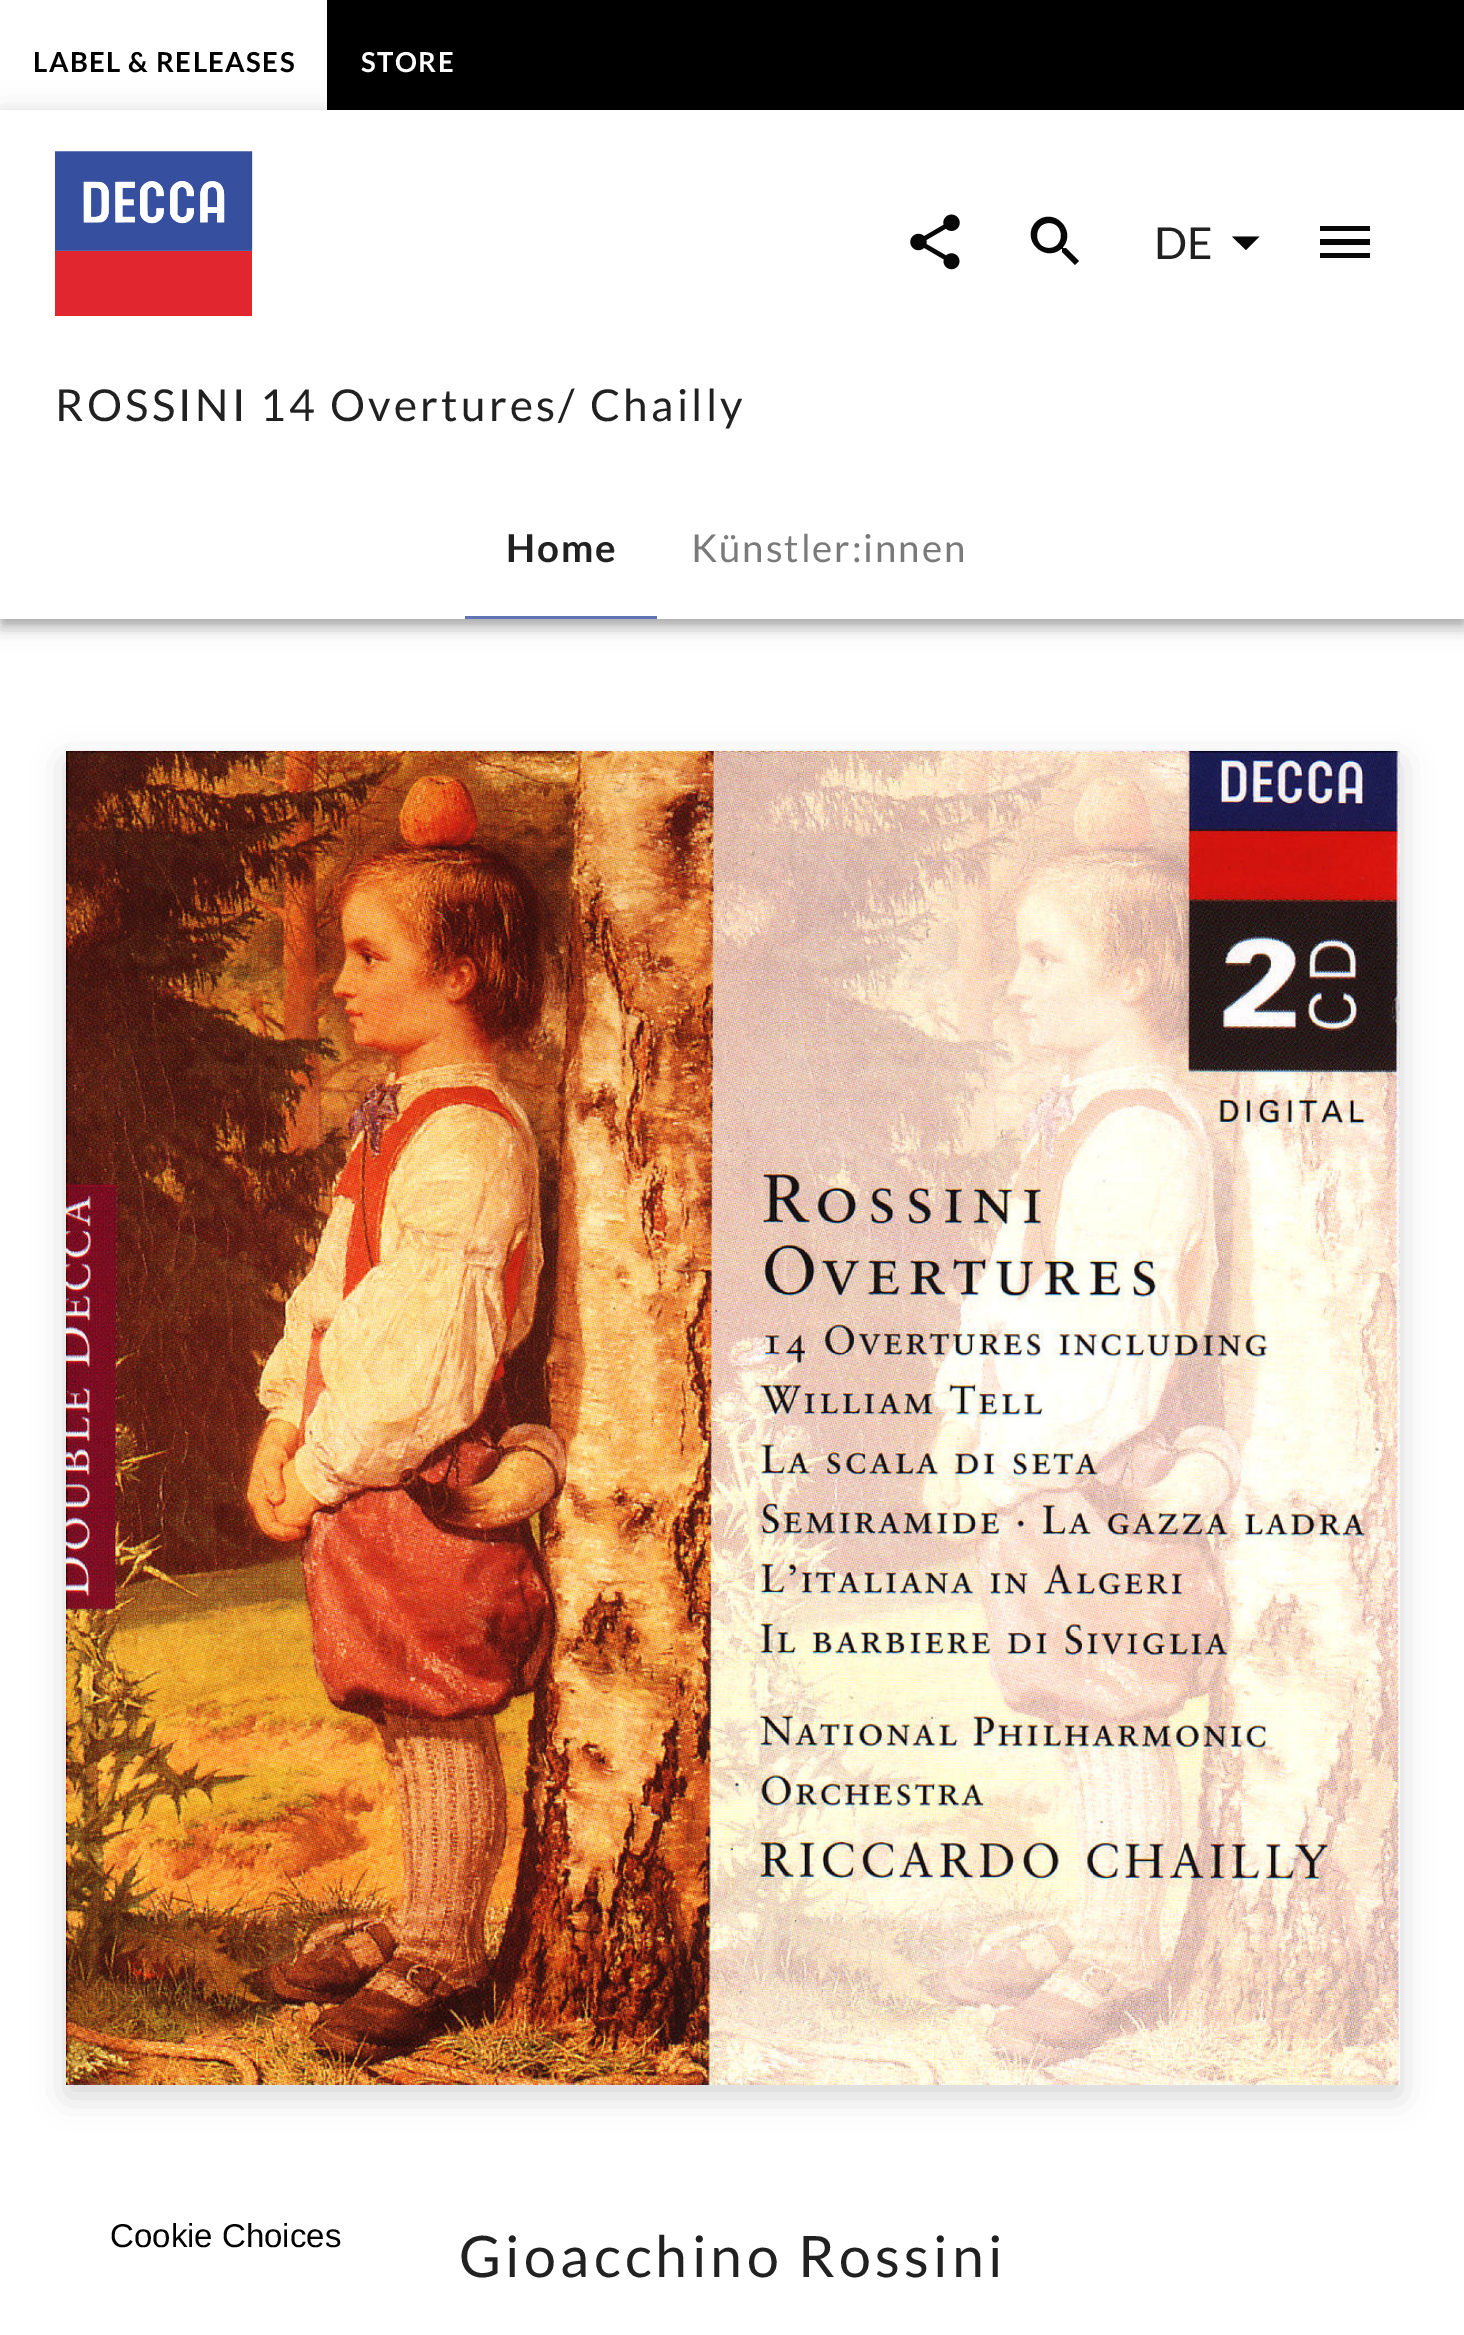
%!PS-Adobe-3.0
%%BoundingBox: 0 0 1464 2335
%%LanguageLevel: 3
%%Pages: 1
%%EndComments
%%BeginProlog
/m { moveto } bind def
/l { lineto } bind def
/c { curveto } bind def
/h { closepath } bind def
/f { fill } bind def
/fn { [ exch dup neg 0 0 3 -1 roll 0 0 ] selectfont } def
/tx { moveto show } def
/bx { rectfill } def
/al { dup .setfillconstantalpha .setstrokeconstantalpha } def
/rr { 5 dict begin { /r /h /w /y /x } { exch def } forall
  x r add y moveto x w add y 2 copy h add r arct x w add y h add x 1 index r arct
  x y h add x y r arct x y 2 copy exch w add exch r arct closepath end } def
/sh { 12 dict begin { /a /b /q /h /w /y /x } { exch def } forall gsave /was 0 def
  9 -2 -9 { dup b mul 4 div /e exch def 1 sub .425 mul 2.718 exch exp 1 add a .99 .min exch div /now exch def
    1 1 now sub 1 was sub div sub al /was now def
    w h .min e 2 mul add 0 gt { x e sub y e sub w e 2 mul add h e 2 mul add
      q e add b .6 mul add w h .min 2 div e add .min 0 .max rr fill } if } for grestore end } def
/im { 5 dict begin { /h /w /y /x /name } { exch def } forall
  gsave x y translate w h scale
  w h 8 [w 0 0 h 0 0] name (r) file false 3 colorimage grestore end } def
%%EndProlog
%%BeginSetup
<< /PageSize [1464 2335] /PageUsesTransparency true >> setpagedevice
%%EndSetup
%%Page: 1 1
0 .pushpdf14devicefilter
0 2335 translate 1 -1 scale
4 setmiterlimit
1 setgray
0 0 1464 2335 bx
0 setgray
327 0 1137 110 bx
/Lato-Bold 27.5 fn
33 72 m 1.4 0 (LABEL & RELEASES) ashow
1 setgray
361 72 m 1.4 0 (STORE) ashow
0 setgray
0 113 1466 509 0 14 0.12 sh
0 121 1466 509 0 7 0.14 sh
3 118 1460 504 0 5.5 0.2 sh
1 setgray
0 110 1464 509 bx
(image0.raw) 55 151 198 165 im
(image1.raw) 910 214 50 56 im
0.031 setgray
1066 248 m 1063 248 l 1063 247 l 1077 230 1053 206 1036 222 c 1020 239 1044 263 1061 249 c 1062 249 l 1062 252 l 1075 265 l 1079 261 l h 1049 248 m 1033 248 1033 223 1049 223 c 1065 223 1065 248 1049 248 c f
/Lato-Regular 44 fn
0.129 setgray
(DE) 1154 259 tx
0.031 setgray
1232 236.5 m 1246 250 l 1259.5 236.5 l h f
1320 258 m 1370 258 l 1370 253 l 1320 253 l h 1320 245 m 1370 245 l 1370 239 l 1320 239 l h 1320 226 m 1320 231 l 1370 231 l 1370 226 l h f
0.129 setgray
55 421 m 3.3 0 (ROSSINI 14 Overtures/ Chailly) ashow
/Lato-Bold 38.5 fn
506 562 m 1.9 0 (Home) ashow
/Lato-Regular 38.5 fn
0.478 setgray
691 562 m 1.9 0 (Künstler:innen) ashow
0.376 0.451 0.702 setrgbcolor
465 616 192 3 bx
0.263 setgray
66 762 1334 1334 0 16.5 0.23 sh
(image2.raw) 66 751 1334 1334 im
/Lato-Regular 57.25 fn
0.129 setgray
459 2277 m 4.25 0 (Gioacchino Rossini) ashow
/LiberationSans-Regular 33 fn
0 setgray
(Cookie Choices) 110 2247 tx
.poppdf14devicefilter showpage
%%EOF
